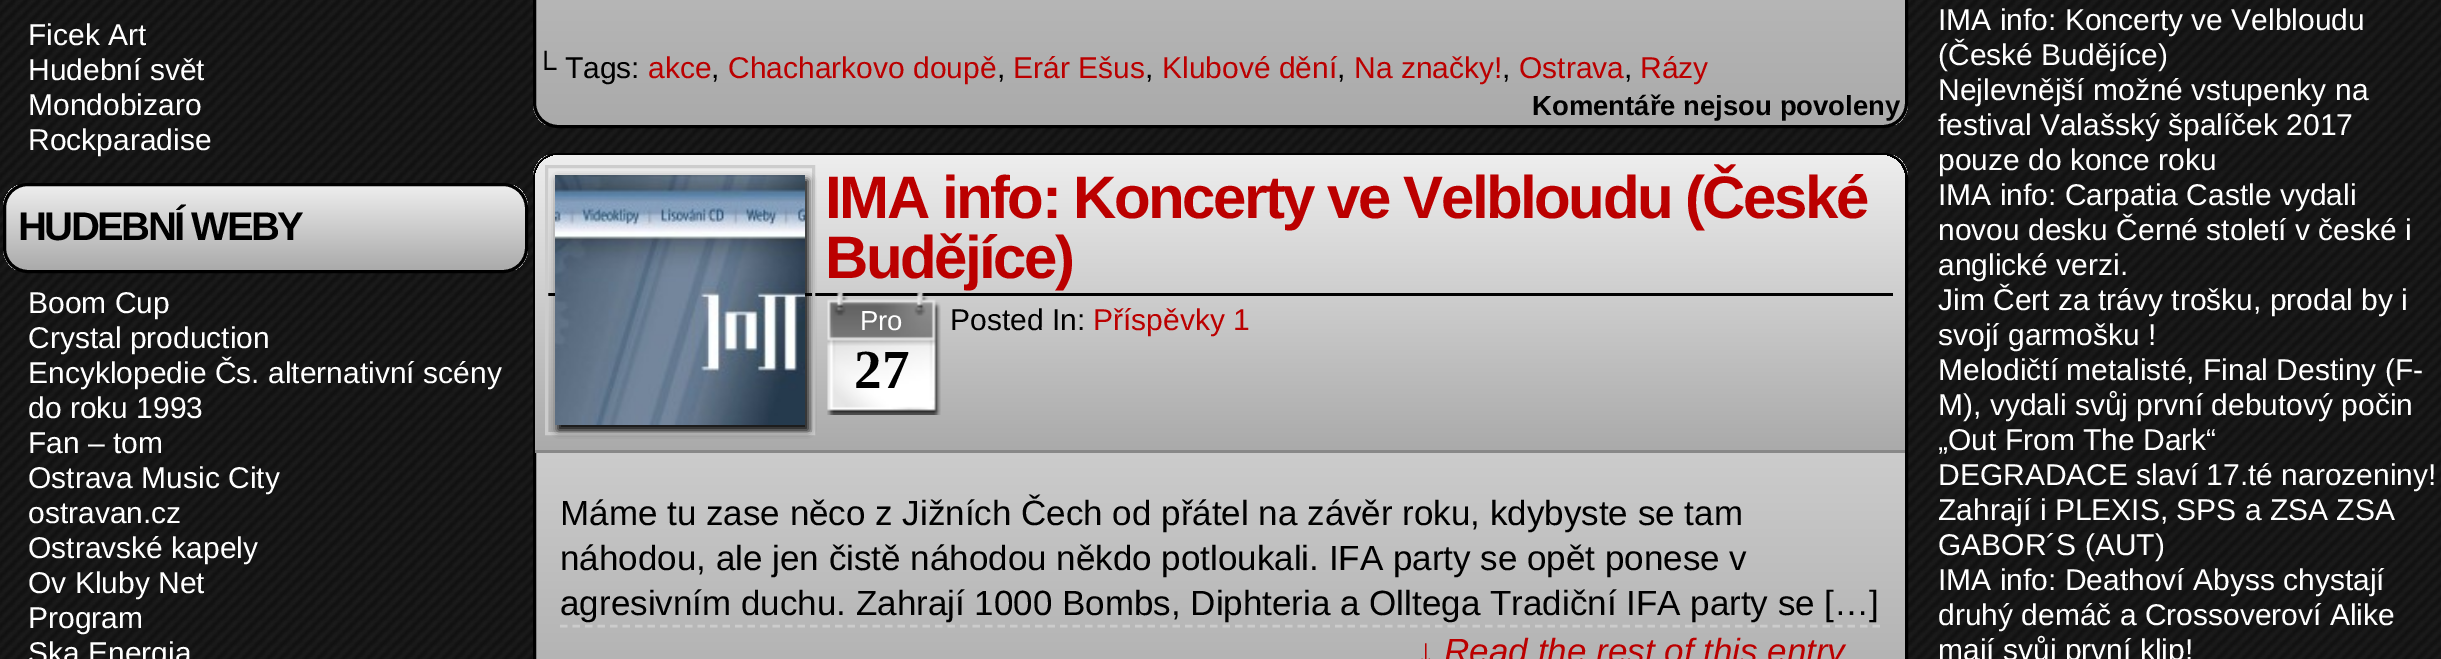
%!PS-Adobe-3.0
%%BoundingBox: 0 0 2441 659
%%LanguageLevel: 3
%%Pages: 1
%%EndComments
%%BeginProlog
/m { moveto } bind def
/l { lineto } bind def
/c { curveto } bind def
/h { closepath } bind def
/S { stroke } bind def
/q { gsave } bind def
/Q { grestore } bind def
/w { setlinewidth } bind def
/fn { [ exch dup neg 0 0 3 -1 roll 0 0 ] selectfont } def
/tx { moveto show } def
/bx { rectfill } def
/al { dup .setfillconstantalpha .setstrokeconstantalpha } def
/rr { 5 dict begin { /r /h /w /y /x } { exch def } forall
  x r add y moveto x w add y 2 copy h add r arct x w add y h add x 1 index r arct
  x y h add x y r arct x y 2 copy exch w add exch r arct closepath end } def
/sh { 12 dict begin { /a /b /q /h /w /y /x } { exch def } forall gsave /was 0 def
  9 -2 -9 { dup b mul 4 div /e exch def 1 sub .425 mul 2.718 exch exp 1 add a .99 .min exch div /now exch def
    1 1 now sub 1 was sub div sub al /was now def
    w h .min e 2 mul add 0 gt { x e sub y e sub w e 2 mul add h e 2 mul add
      q e add b .6 mul add w h .min 2 div e add .min 0 .max rr fill } if } for grestore end } def
/im { 5 dict begin { /h /w /y /x /name } { exch def } forall
  gsave x y translate w h scale
  w h 8 [w 0 0 h 0 0] name (r) file false 3 colorimage grestore end } def
%%EndProlog
%%BeginSetup
<< /PageSize [2441 659] /PageUsesTransparency true >> setpagedevice
%%EndSetup
%%Page: 1 1
0 .pushpdf14devicefilter
0 659 translate 1 -1 scale
4 setmiterlimit
0.067 setgray
0 0 2441 659 bx
(image0.raw) 0 0 2441 659 im
/LiberationSans-Regular 30 fn
1 setgray
(Ficek Art) 28 45 tx
(Hudební svět) 28 80 tx
(Mondobizaro) 28 115 tx
(Rockparadise) 28 150 tx
q
3 183 525 90 25 rr clip newpath
q 3 185 m 528 185 l 528 270 l 3 270 l h clip newpath
<< /ShadingType 2 /ColorSpace /DeviceRGB /Coords [5 185 5 270] /Extend [true true] /Function << /FunctionType 2 /Domain [0 1] /C0 [0.933 0.933 0.933] /C1 [0.667 0.667 0.667] /N 1 >> >> shfill Q
Q
0 setgray
3 w
4.5 184.5 522 87 23.5 rr S
/LiberationSans-Bold 40 fn
18 240 m -2.5 0 (HUDEBNÍ WEBY) ashow
/LiberationSans-Regular 30 fn
1 setgray
(Boom Cup) 28 313 tx
(Crystal production) 28 348 tx
(Encyklopedie Čs. alternativní scény) 28 383 tx
(do roku 1993) 28 418 tx
(Fan – tom) 28 453 tx
(Ostrava Music City) 28 488 tx
(ostravan.cz) 28 523 tx
(Ostravské kapely) 28 558 tx
(Ov Kluby Net) 28 593 tx
(Program) 28 628 tx
(Ska Energia) 28 663 tx
q
533 -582 1375 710 25 rr clip newpath
q 533 0 m 1908 0 l 1908 125 l 533 125 l h clip newpath
<< /ShadingType 2 /ColorSpace /DeviceRGB /Coords [535 -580 535 125] /Extend [true true] /Function << /FunctionType 2 /Domain [0 1] /C0 [0.933 0.933 0.933] /C1 [0.667 0.667 0.667] /N 1 >> >> shfill Q
Q
0 setgray
534.5 -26.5 1372 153 23.5 rr S
(└ Tags:) 535 78 tx
0.733 0 0 setrgbcolor
(akce) 648 78 tx
0 setgray
(,) 711 78 tx
0.733 0 0 setrgbcolor
(Chacharkovo doupě) 728 78 tx
0 setgray
(,) 997 78 tx
0.733 0 0 setrgbcolor
(Erár Ešus) 1013 78 tx
0 setgray
(,) 1145 78 tx
0.733 0 0 setrgbcolor
(Klubové dění) 1162 78 tx
0 setgray
(,) 1337 78 tx
0.733 0 0 setrgbcolor
(Na značky!) 1354 78 tx
0 setgray
(,) 1502 78 tx
0.733 0 0 setrgbcolor
(Ostrava) 1519 78 tx
0 setgray
(,) 1624 78 tx
0.733 0 0 setrgbcolor
(Rázy) 1640 78 tx
/LiberationSans-Bold 27.5 fn
0 setgray
(Komentáře nejsou povoleny) 1532 115 tx
q
533 153 1375 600 25 rr clip newpath
q 533 155 m 1908 155 l 1908 659 l 533 659 l h clip newpath
<< /ShadingType 2 /ColorSpace /DeviceRGB /Coords [535 155 535 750] /Extend [true true] /Function << /FunctionType 2 /Domain [0 1] /C0 [0.933 0.933 0.933] /C1 [0.667 0.667 0.667] /N 1 >> >> shfill Q
Q
534.5 154.5 1372 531 23.5 rr S
q 560 155 m 1880 155 l 1894 155 1905 166 1905 180 c 1905 450 l 535 450 l 535 180 l 535 166 546 155 560 155 c h clip newpath
<< /ShadingType 2 /ColorSpace /DeviceRGB /Coords [535 155 535 450] /Extend [true true] /Function << /FunctionType 2 /Domain [0 1] /C0 [0.933 0.933 0.933] /C1 [0.667 0.667 0.667] /N 1 >> >> shfill Q
548 293 1345 3 bx
0.8 setgray
546.5 166.5 267 267 rectstroke
0 setgray
558 180 250 250 0 4 1 sh
(image1.raw) 555 175 250 250 im
0.533 setgray
535 450 1370 3 bx
/LiberationSans-Bold 60 fn
0.733 0 0 setrgbcolor
825 218 m -2.5 0 (IMA info: Koncerty ve Velbloudu \(České) ashow
825 278 m -2.5 0 (Budějíce\)) ashow
(image2.raw) 827 292 114 123 im
/LiberationSans-Regular 27.5 fn
1 setgray
(Pro) 860 330 tx
/LiberationSerif-Bold 55 fn
0 setgray
(27) 854 388 tx
/LiberationSans-Regular 30 fn
(Posted In:) 950 330 tx
0.733 0 0 setrgbcolor
(Příspěvky 1) 1093 330 tx
/LiberationSans-Regular 35 fn
0 setgray
(Máme tu zase něco z Jižních Čech od přátel na závěr roku, kdybyste se tam) 560 525 tx
(náhodou, ale jen čistě náhodou někdo potloukali. IFA party se opět ponese v) 560 570 tx
(agresivním duchu. Zahrají 1000 Bombs, Diphteria a Olltega Tradiční IFA party se […]) 560 615 tx
0.8 setgray
2.5 w
[7.5 5] 0 setdash
560 626 m 1880 626 l S
/LiberationSans-Italic 35 fn
0.733 0 0 setrgbcolor
(↓ Read the rest of this entry…) 1417 663 tx
/LiberationSans-Regular 30 fn
1 setgray
(IMA info: Koncerty ve Velbloudu) 1938 30 tx
(\(České Budějíce\)) 1938 65 tx
(Nejlevnější možné vstupenky na) 1938 100 tx
(festival Valašský špalíček 2017) 1938 135 tx
(pouze do konce roku) 1938 170 tx
(IMA info: Carpatia Castle vydali) 1938 205 tx
(novou desku Černé století v české i) 1938 240 tx
(anglické verzi.) 1938 275 tx
(Jim Čert za trávy trošku, prodal by i) 1938 310 tx
(svojí garmošku !) 1938 345 tx
(Melodičtí metalisté, Final Destiny \(F-) 1938 380 tx
(M\), vydali svůj první debutový počin) 1938 415 tx
(„Out From The Dark“) 1938 450 tx
(DEGRADACE slaví 17.té narozeniny!) 1938 485 tx
(Zahrají i PLEXIS, SPS a ZSA ZSA) 1938 520 tx
(GABOR´S \(AUT\)) 1938 555 tx
(IMA info: Deathoví Abyss chystají) 1938 590 tx
(druhý demáč a Crossoveroví Alike) 1938 625 tx
(mají svůj první klip!) 1938 660 tx
.poppdf14devicefilter showpage
%%EOF
